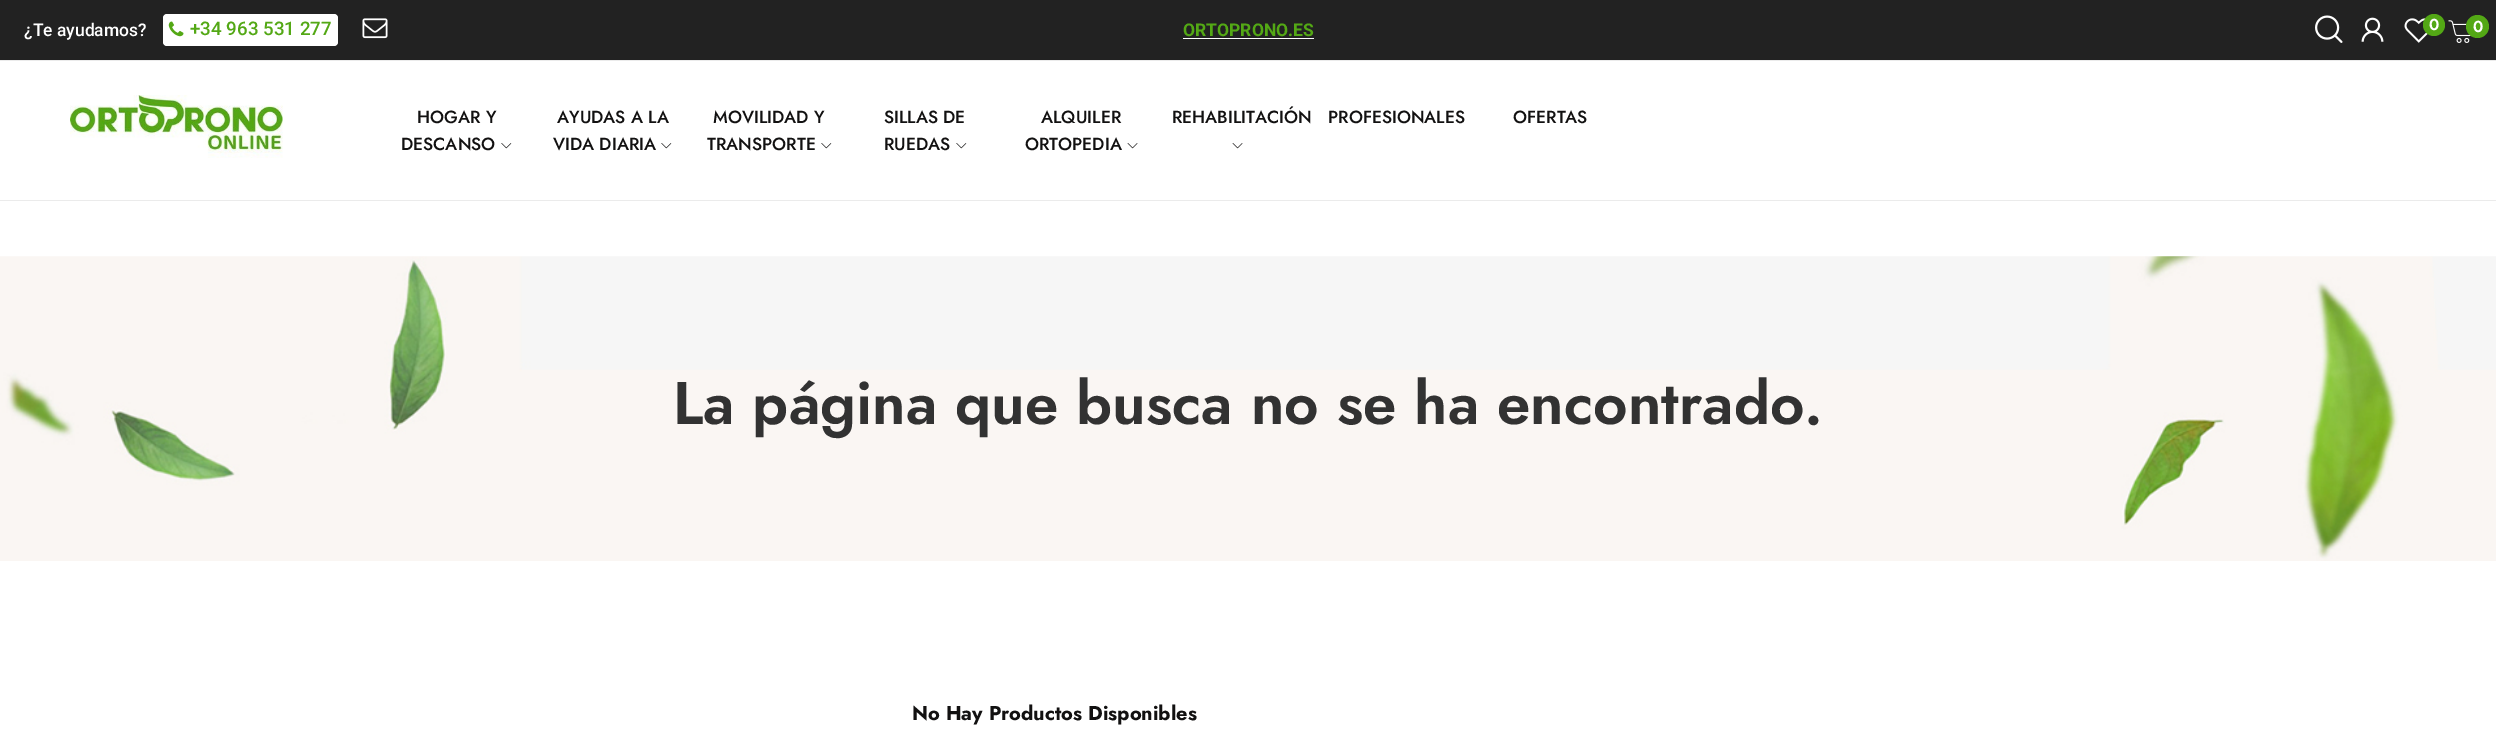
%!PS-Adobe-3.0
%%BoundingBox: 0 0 2496 748
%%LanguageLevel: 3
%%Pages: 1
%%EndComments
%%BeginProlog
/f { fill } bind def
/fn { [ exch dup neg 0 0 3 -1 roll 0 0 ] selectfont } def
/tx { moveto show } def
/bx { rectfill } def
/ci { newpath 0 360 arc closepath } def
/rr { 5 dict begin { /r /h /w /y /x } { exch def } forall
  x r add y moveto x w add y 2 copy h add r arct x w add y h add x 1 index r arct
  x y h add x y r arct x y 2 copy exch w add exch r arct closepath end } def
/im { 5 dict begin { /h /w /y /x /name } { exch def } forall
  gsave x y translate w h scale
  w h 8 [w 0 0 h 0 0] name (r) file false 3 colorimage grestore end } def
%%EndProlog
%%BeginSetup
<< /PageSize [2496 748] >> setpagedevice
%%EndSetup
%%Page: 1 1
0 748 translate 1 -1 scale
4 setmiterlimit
1 setgray
0 0 2496 748 bx
0.133 setgray
0 0 2496 60 bx
0.922 setgray
0 60 2496 1 bx
/Roboto-Medium 17.5 fn
1 setgray
(¿Te ayudamos?) 24 36 tx
163 14 175 32 4 rr f
(image0.raw) 168 21 16 16 im
/Roboto-Medium 18.75 fn
0.325 0.659 0.082 setrgbcolor
(+34 963 531 277) 190 35 tx
(image1.raw) 362 18 26 21 im
/Roboto-Bold 17.5 fn
(ORTOPRONO.ES) 1183 36 tx
1 setgray
1183 38 131 1 bx
(image2.raw) 2315 15 28 28 im
(image3.raw) 2361 17 23 25 im
(image4.raw) 2404 18 24 25 im
0.325 0.659 0.082 setrgbcolor
2434 25 11 ci f
/Jost-SemiBold 16 fn
1 setgray
(0) 2429 30 tx
(image5.raw) 2448 20 23 23 im
0.325 0.659 0.082 setrgbcolor
2477.5 26.5 11.5 ci f
1 setgray
(0) 2473 32 tx
0.922 setgray
0 200 2496 1 bx
(image6.raw) 70 95 213 63 im
/Jost-Medium 17.5 fn
0.071 0.067 0.067 setrgbcolor
(HOGAR Y) 417 123 tx
(DESCANSO) 401 150 tx
(image7.raw) 501 143 11 6 im
(AYUDAS A LA) 557 123 tx
(VIDA DIARIA) 553 150 tx
(image7.raw) 661 143 11 6 im
(MOVILIDAD Y) 713 123 tx
(TRANSPORTE) 707 150 tx
(image7.raw) 821 143 11 6 im
(SILLAS DE) 884 123 tx
(RUEDAS) 884 150 tx
(image7.raw) 956 143 11 6 im
(ALQUILER) 1041 123 tx
(ORTOPEDIA) 1025 150 tx
(image8.raw) 1127 143 11 6 im
(REHABILITACIÓN) 1172 123 tx
(image8.raw) 1232 143 11 6 im
(PROFESIONALES) 1328 123 tx
(OFERTAS) 1513 123 tx
(image9.raw) 0 256 2496 305 im
/Jost-SemiBold 60 fn
0.196 setgray
(La página que busca no se ha encontrado.) 673 424 tx
/Jost-Bold 20 fn
0.071 0.067 0.067 setrgbcolor
(No Hay Productos Disponibles) 912 720 tx
showpage
%%EOF
